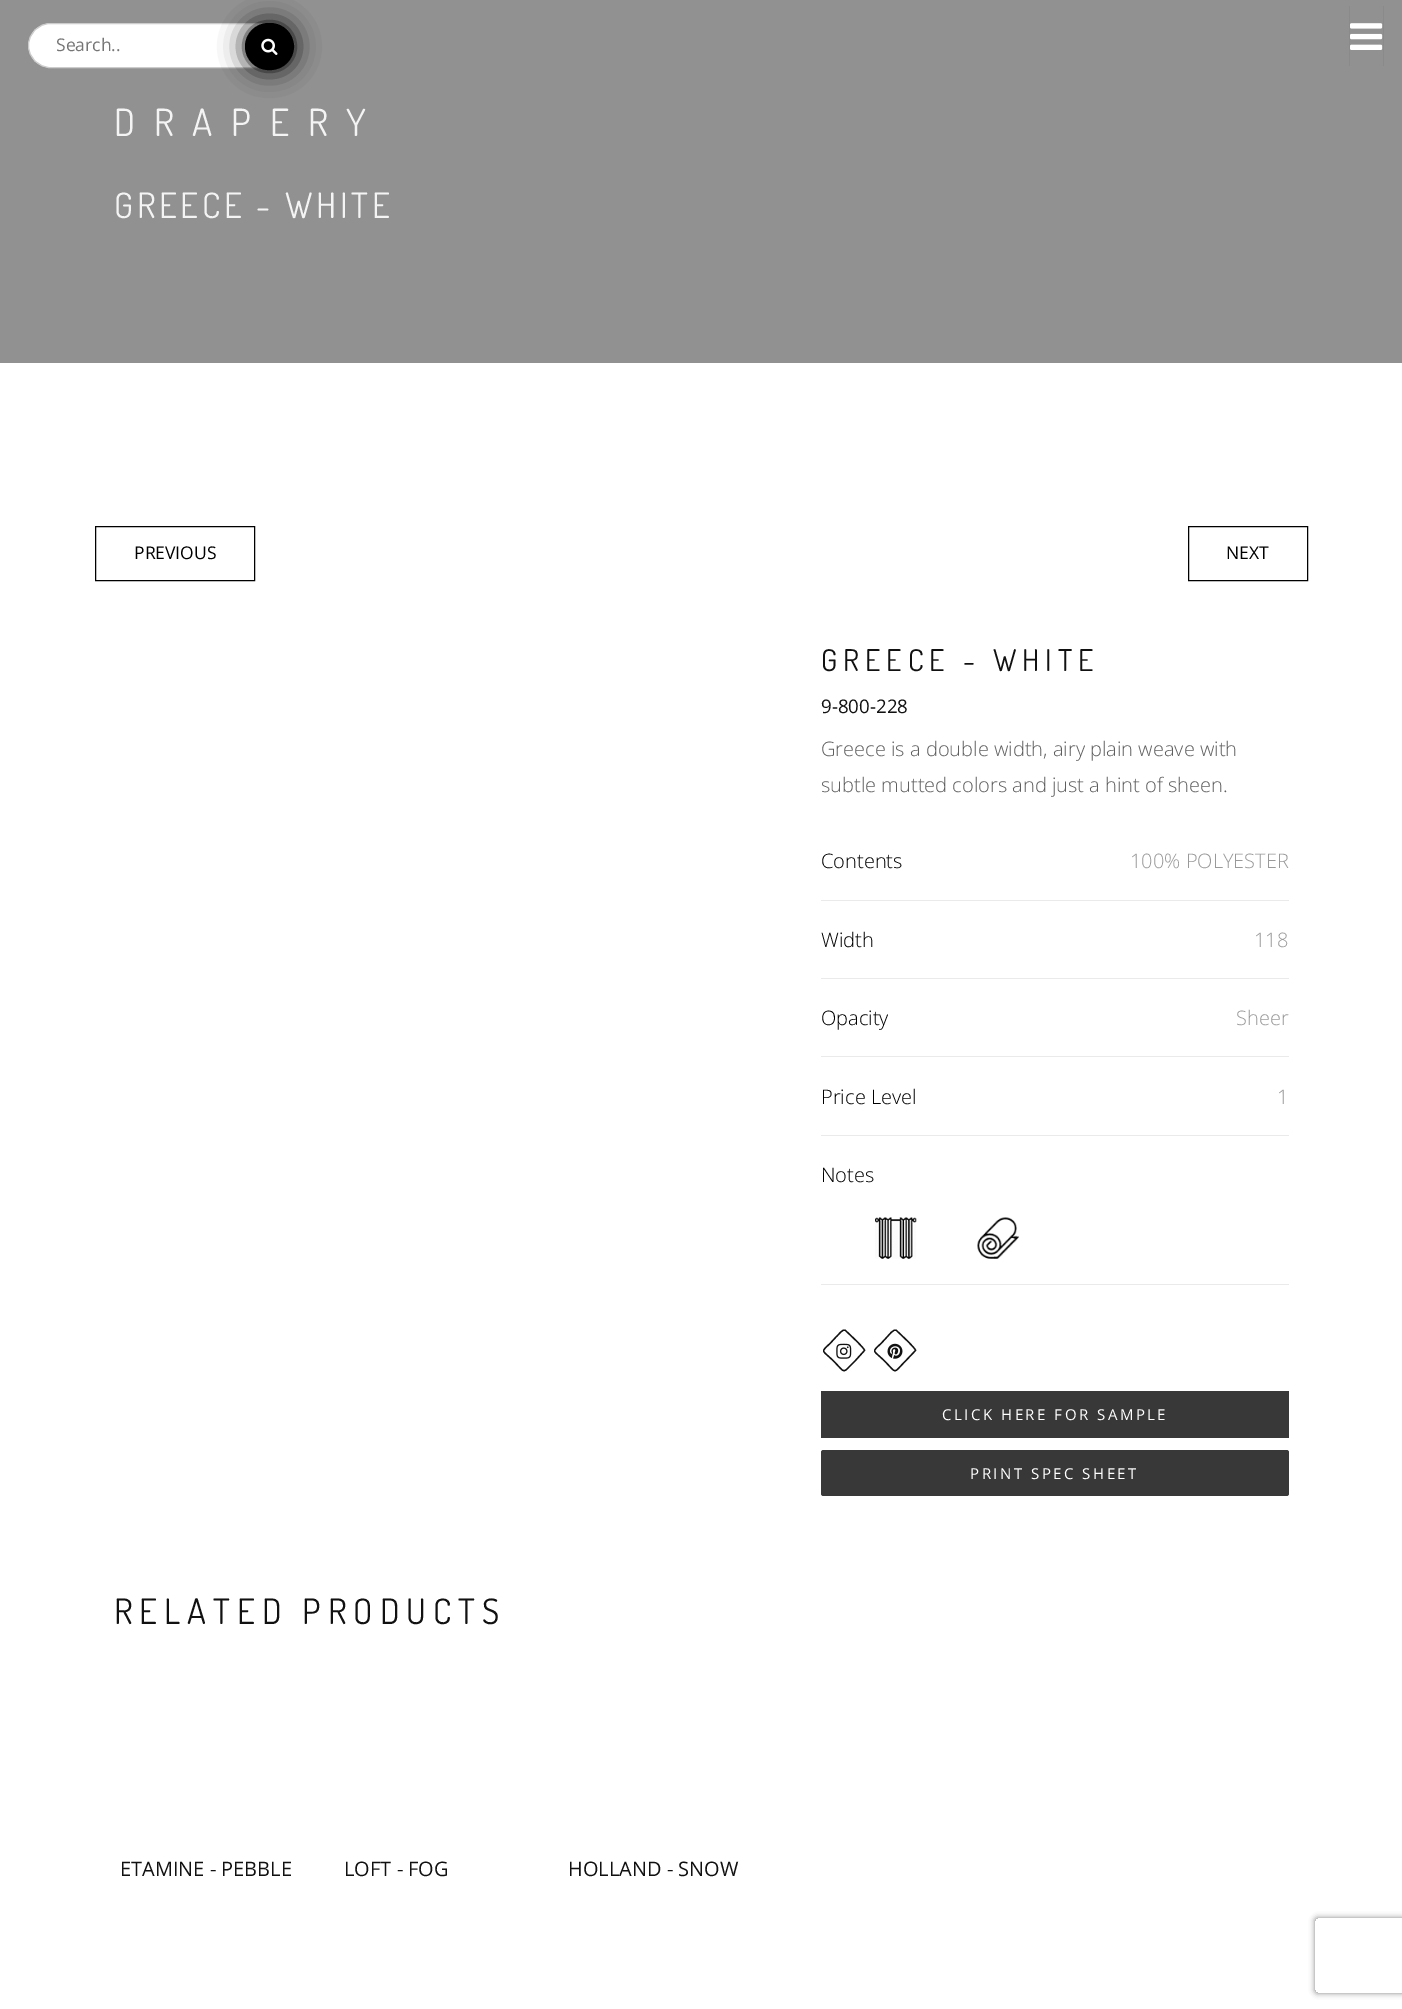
%!PS-Adobe-3.0
%%BoundingBox: 0 0 1402 2009
%%LanguageLevel: 3
%%Pages: 1
%%EndComments
%%BeginProlog
/m { moveto } bind def
/l { lineto } bind def
/c { curveto } bind def
/h { closepath } bind def
/f { fill } bind def
/S { stroke } bind def
/q { gsave } bind def
/Q { grestore } bind def
/w { setlinewidth } bind def
/fn { [ exch dup neg 0 0 3 -1 roll 0 0 ] selectfont } def
/tx { moveto show } def
/bx { rectfill } def
/al { dup .setfillconstantalpha .setstrokeconstantalpha } def
/rr { 5 dict begin { /r /h /w /y /x } { exch def } forall
  x r add y moveto x w add y 2 copy h add r arct x w add y h add x 1 index r arct
  x y h add x y r arct x y 2 copy exch w add exch r arct closepath end } def
/sh { 12 dict begin { /a /b /q /h /w /y /x } { exch def } forall gsave /was 0 def
  9 -2 -9 { dup b mul 4 div /e exch def 1 sub .425 mul 2.718 exch exp 1 add a .99 .min exch div /now exch def
    1 1 now sub 1 was sub div sub al /was now def
    w h .min e 2 mul add 0 gt { x e sub y e sub w e 2 mul add h e 2 mul add
      q e add b .6 mul add w h .min 2 div e add .min 0 .max rr fill } if } for grestore end } def
/im { 5 dict begin { /h /w /y /x /name } { exch def } forall
  gsave x y translate w h scale
  w h 8 [w 0 0 h 0 0] name (r) file false 3 colorimage grestore end } def
%%EndProlog
%%BeginSetup
<< /PageSize [1402 2009] /PageUsesTransparency true >> setpagedevice
%%EndSetup
%%Page: 1 1
0 .pushpdf14devicefilter
0 2009 translate 1 -1 scale
4 setmiterlimit
1 setgray
0 0 1402 2009 bx
0.569 setgray
0 0 1402 363 bx
1 setgray
28.5 23.5 265 44 22 rr q f Q
0.8 setgray
S
/OpenSans-Regular 17.5 fn
0.459 setgray
(Search..) 56 51 tx
0 setgray
245 23 49 47 23.5 12.5 1 sh
247 25 45 43 21.5 rr q f Q
4 w
S
(image0.raw) 261 38 17 17 im
0.541 setgray
1383 6 1 60 bx
1349 6 1 60 bx
(image1.raw) 1350 23 33 27 im
/Dosis-Regular 37.5 fn
0.957 setgray
114 136 m 18.75 0 (DRAPERY) ashow
/Dosis-Regular 35 fn
114 218 m 3.75 0 (GREECE - WHITE) ashow
0 setgray
1 w
95.5 526.5 159 54 rectstroke
/OpenSans-Regular 17.5 fn
(PREVIOUS) 134 559 tx
1188.5 526.5 119 54 rectstroke
(NEXT) 1226 559 tx
/Dosis-Regular 30 fn
0.067 setgray
821 671 m 6 0 (GREECE - WHITE) ashow
/OpenSans-Regular 18.75 fn
(9-800-228) 821 713 tx
/OpenSans-Light 20 fn
0.373 setgray
(Greece is a double width, airy plain weave with) 821 756 tx
(subtle mutted colors and just a hint of sheen.) 821 792 tx
0.918 setgray
821 900 468 1 bx
0 setgray
(Contents) 821 868 tx
0.6 setgray
(100% POLYESTER) 1130 868 tx
0.918 setgray
821 978 468 1 bx
0 setgray
(Width) 821 947 tx
0.6 setgray
(118) 1254 947 tx
0.918 setgray
821 1056 468 1 bx
0 setgray
(Opacity) 821 1025 tx
0.6 setgray
(Sheer) 1236 1025 tx
0.918 setgray
821 1135 468 1 bx
0 setgray
(Price Level) 821 1104 tx
0.6 setgray
(1) 1277 1104 tx
0.918 setgray
821 1284 468 1 bx
0 setgray
(Notes) 821 1182 tx
(image2.raw) 875 1217 42 42 im
(image3.raw) 977 1217 42 42 im
0.067 setgray
1.3 w
845.5 1330.5 m 848 1333 865 1348.5 864.5 1350.5 c 855 1361 l 841.5 1374 846.5 1374 833.5 1361 c 822 1349.5 820 1353 830.5 1343 c 836.5 1336.5 l 838 1335.5 843 1328 845.5 1330.5 c h S
(image4.raw) 836 1343 16 16 im
896.5 1330.5 m 899 1333 916 1348.5 915.5 1350.5 c 905.5 1361 l 892.5 1374 897.5 1374 884.5 1361 c 873 1349.5 871 1353 881.5 1343 c 887.5 1336.5 l 888.5 1335.5 894 1328 896.5 1330.5 c h S
(image5.raw) 887 1343 16 16 im
0.22 setgray
821 1391 468 47 bx
/OpenSans-Regular 15 fn
1 setgray
942 1420 m 2.5 0 (CLICK HERE FOR SAMPLE) ashow
0.22 setgray
821 1450 468 46 2.5 rr f
1 setgray
970 1479 m 2.5 0 (PRINT SPEC SHEET) ashow
/Dosis-Regular 35 fn
0.067 setgray
114 1624 m 7 0 (RELATED PRODUCTS) ashow
/OpenSans-Regular 20 fn
(ETAMINE - PEBBLE) 120 1876 tx
(LOFT - FOG) 344 1876 tx
(HOLLAND - SNOW) 568 1876 tx
q
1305 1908 m 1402 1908 l 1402 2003 l 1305 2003 l h 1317.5 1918 m 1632.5 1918 l 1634 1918 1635 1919 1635 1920.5 c 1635 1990.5 l 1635 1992 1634 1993 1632.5 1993 c 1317.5 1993 l 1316 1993 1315 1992 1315 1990.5 c 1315 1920.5 l 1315 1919 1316 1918 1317.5 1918 c h eoclip newpath
0.502 setgray
1315 1918 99 75 2.5 3 1 sh
Q
.poppdf14devicefilter showpage
%%EOF
